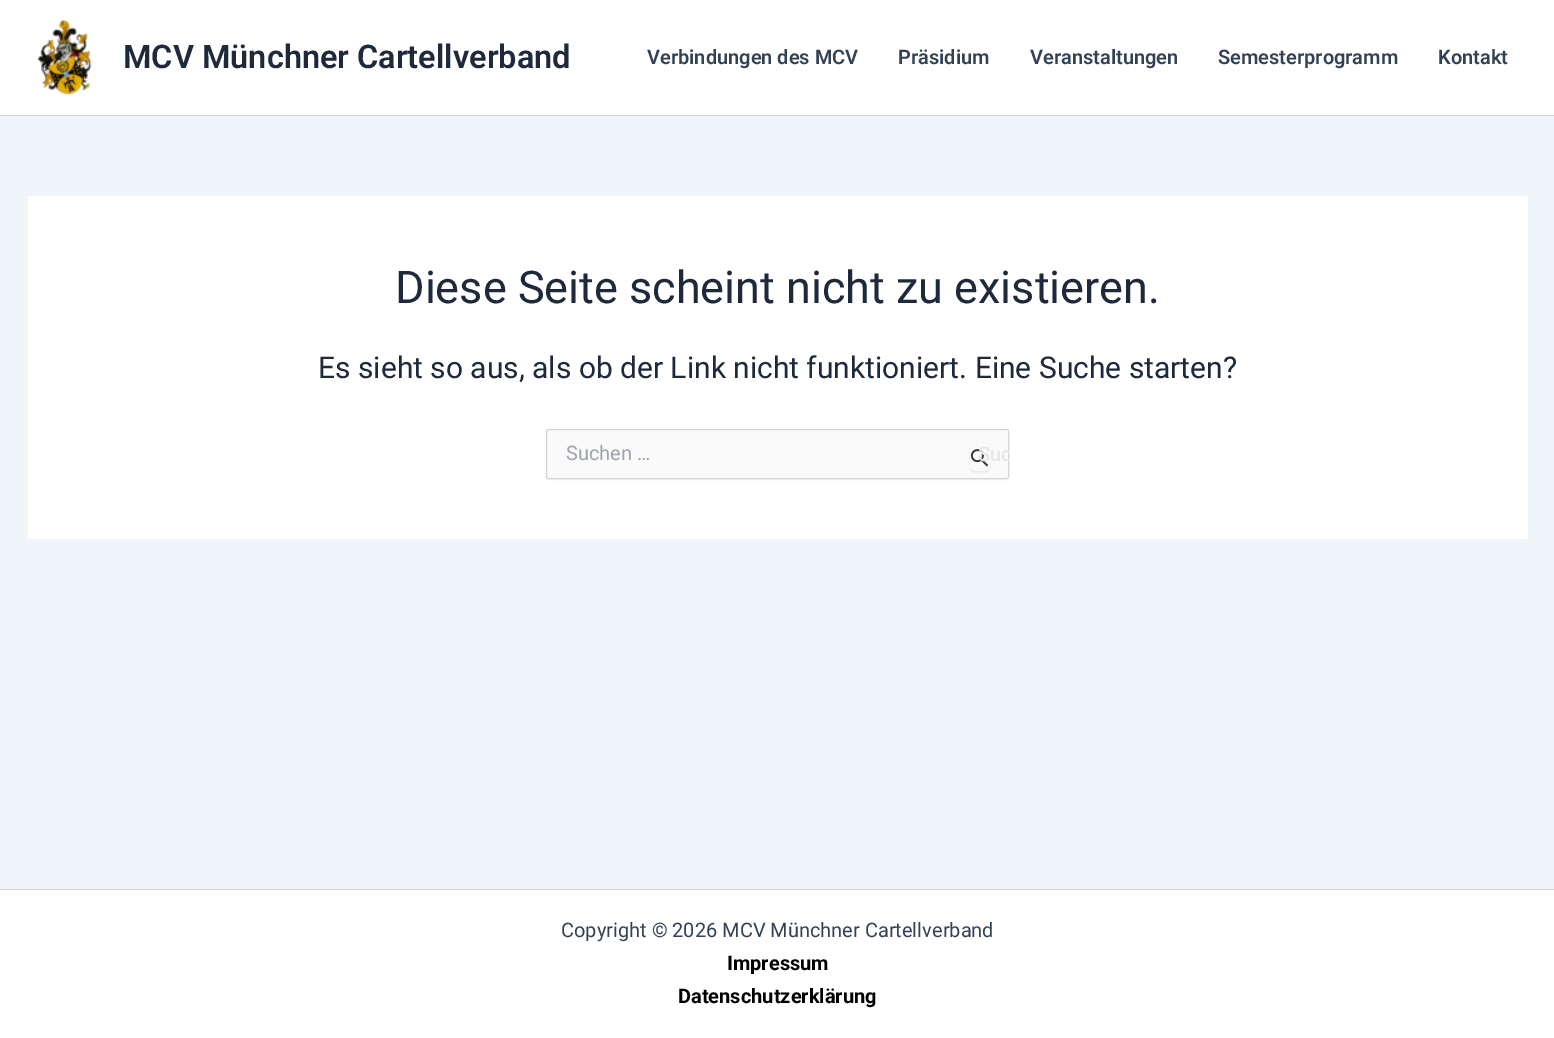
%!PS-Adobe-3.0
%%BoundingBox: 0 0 1554 1038
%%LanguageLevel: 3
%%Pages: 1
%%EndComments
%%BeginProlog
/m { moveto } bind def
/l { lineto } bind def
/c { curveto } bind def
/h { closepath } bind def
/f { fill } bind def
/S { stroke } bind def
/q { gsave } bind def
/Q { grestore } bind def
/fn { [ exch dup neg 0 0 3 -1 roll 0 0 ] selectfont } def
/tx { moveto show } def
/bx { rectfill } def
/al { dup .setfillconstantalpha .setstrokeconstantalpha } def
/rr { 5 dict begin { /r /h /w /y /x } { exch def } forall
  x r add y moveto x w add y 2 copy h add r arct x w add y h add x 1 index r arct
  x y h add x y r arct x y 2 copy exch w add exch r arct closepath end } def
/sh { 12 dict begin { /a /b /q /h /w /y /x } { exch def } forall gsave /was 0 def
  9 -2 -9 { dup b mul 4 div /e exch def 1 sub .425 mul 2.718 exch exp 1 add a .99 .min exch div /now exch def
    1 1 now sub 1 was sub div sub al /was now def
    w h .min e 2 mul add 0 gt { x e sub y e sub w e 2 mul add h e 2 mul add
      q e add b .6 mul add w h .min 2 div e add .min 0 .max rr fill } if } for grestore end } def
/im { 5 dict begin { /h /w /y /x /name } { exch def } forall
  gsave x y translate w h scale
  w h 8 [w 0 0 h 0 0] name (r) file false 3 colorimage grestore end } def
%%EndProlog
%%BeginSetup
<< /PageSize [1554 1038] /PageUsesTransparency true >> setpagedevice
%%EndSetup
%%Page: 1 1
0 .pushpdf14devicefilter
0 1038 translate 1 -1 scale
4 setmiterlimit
0.941 0.961 0.98 setrgbcolor
0 0 1554 1038 bx
1 setgray
0 0 1554 115 bx
0.82 0.835 0.859 setrgbcolor
0 115 1554 1 bx
(image0.raw) 37 20 55 75 im
/Roboto-SemiBold 32.5 fn
0.118 0.161 0.231 setrgbcolor
(MCV Münchner Cartellverband) 123 68 tx
/Roboto-SemiBold 20 fn
0.2 0.255 0.333 setrgbcolor
(Verbindungen des MCV) 647 64 tx
(Präsidium) 898 64 tx
(Veranstaltungen) 1030 64 tx
(Semesterprogramm) 1218 64 tx
(Kontakt) 1438 64 tx
1 setgray
28 196 1500 343 bx
/Roboto-Regular 45 fn
0.118 0.161 0.231 setrgbcolor
(Diese Seite scheint nicht zu existieren.) 395 303 tx
/Roboto-Regular 30 fn
(Es sieht so aus, als ob der Link nicht funktioniert. Eine Suche starten?) 318 378 tx
0 setgray
546 430 463 50 2.5 1 0.05 sh
0.98 setgray
546.5 429.5 462 49 2 rr q f Q
0.82 0.835 0.859 setrgbcolor
S
/Roboto-Regular 20 fn
0.612 0.639 0.686 setrgbcolor
(Suchen …) 566 460 tx
q
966 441 m 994 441 l 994 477 l 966 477 l h 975 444 m 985 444 l 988 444 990 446 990 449 c 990 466 l 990 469 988 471 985 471 c 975 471 l 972 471 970 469 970 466 c 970 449 l 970 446 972 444 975 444 c h eoclip newpath
0 setgray
970 445 20 28 5 1 0.05 sh
Q
(image1.raw) 970 449 18 18 im
q
953 429 56 52 2.5 rr clip newpath
/Roboto-Medium 20 fn
0.902 setgray
(Suc) 978 461 tx
Q
1 setgray
0 890 1554 148 bx
0.82 0.835 0.859 setrgbcolor
0 889 1554 1 bx
0.2 0.255 0.333 setrgbcolor
(Copyright © 2026 MCV Münchner Cartellverband) 561 937 tx
/Roboto-Bold 20 fn
0 setgray
(Impressum) 727 970 tx
(Datenschutzerklärung) 678 1003 tx
.poppdf14devicefilter showpage
%%EOF
